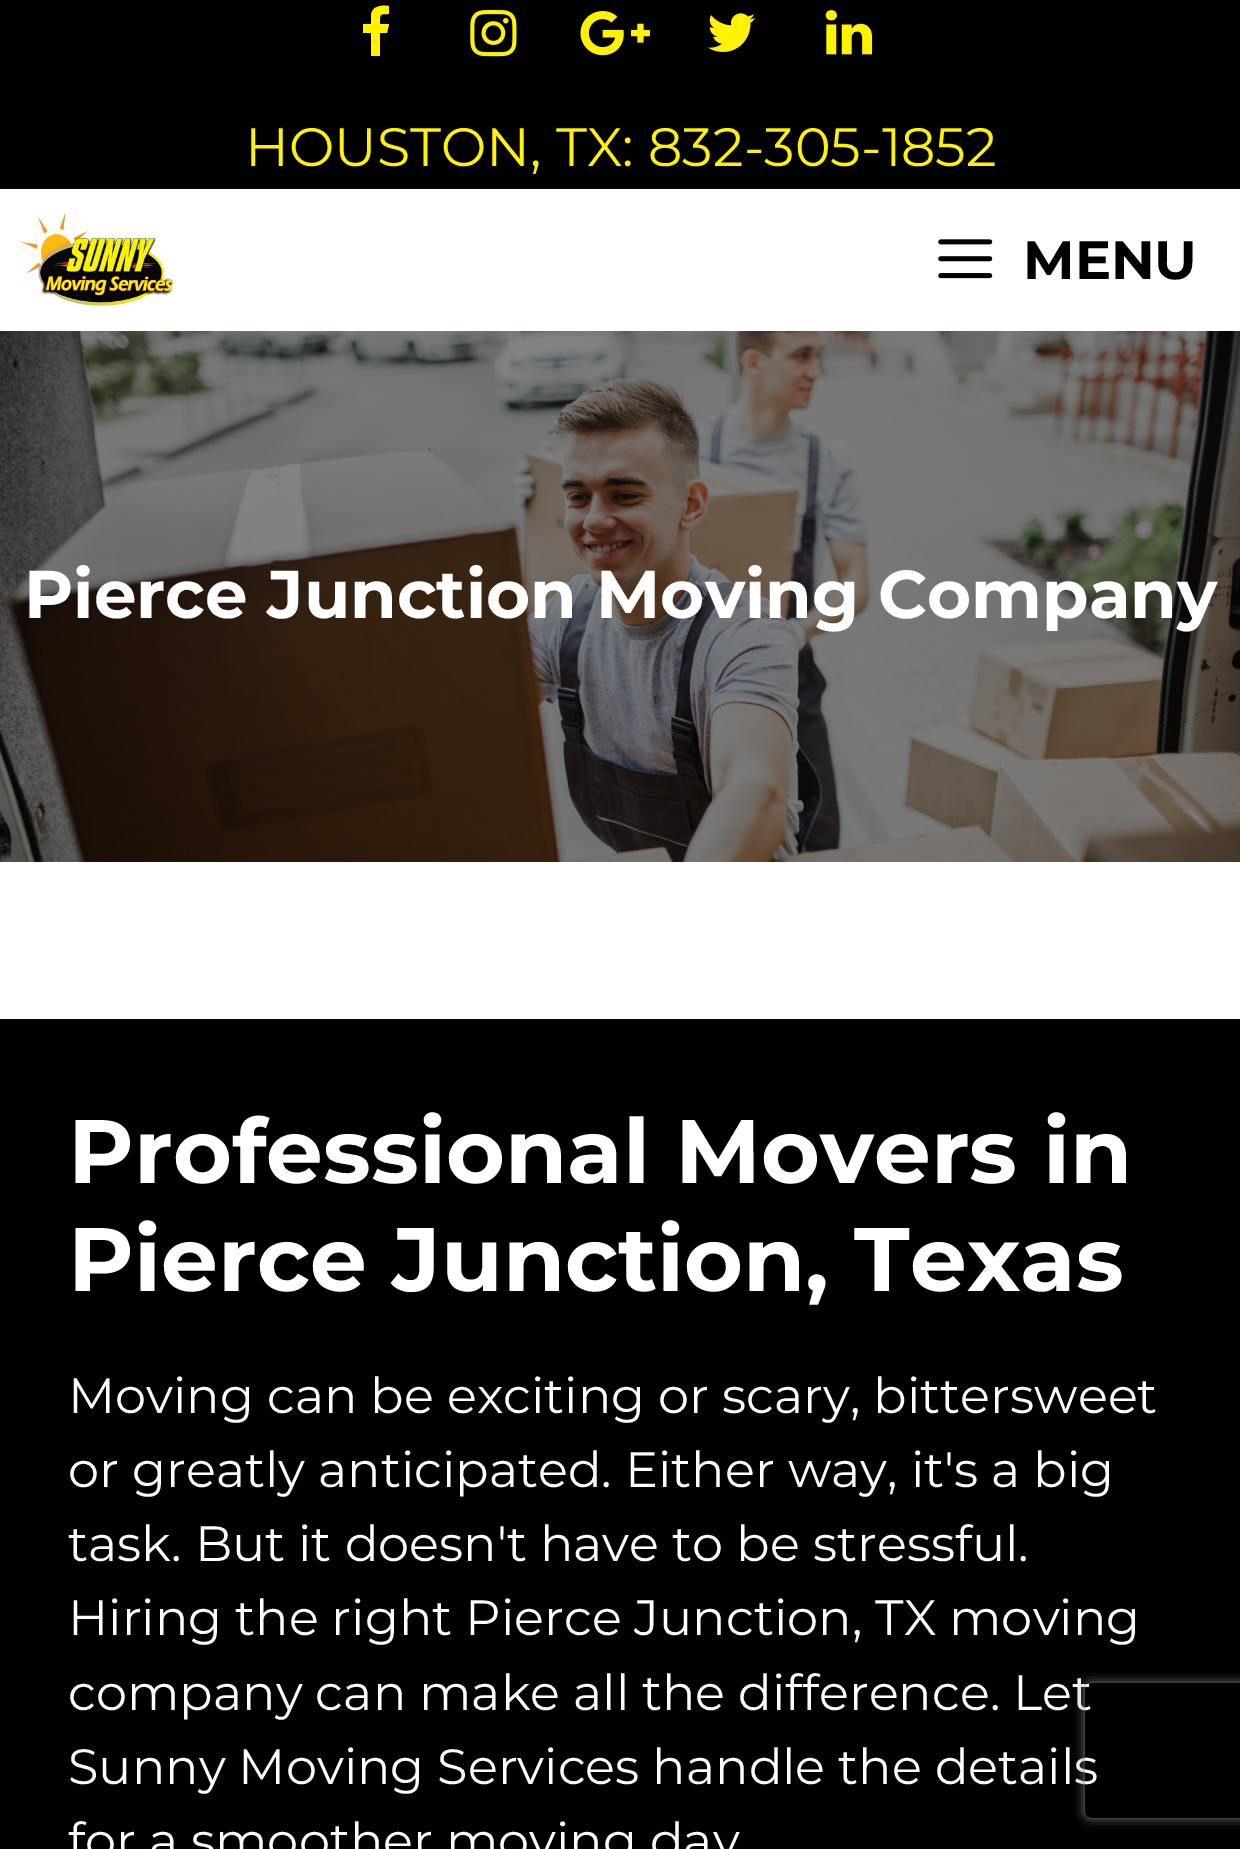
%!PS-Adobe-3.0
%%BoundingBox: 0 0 1240 1849
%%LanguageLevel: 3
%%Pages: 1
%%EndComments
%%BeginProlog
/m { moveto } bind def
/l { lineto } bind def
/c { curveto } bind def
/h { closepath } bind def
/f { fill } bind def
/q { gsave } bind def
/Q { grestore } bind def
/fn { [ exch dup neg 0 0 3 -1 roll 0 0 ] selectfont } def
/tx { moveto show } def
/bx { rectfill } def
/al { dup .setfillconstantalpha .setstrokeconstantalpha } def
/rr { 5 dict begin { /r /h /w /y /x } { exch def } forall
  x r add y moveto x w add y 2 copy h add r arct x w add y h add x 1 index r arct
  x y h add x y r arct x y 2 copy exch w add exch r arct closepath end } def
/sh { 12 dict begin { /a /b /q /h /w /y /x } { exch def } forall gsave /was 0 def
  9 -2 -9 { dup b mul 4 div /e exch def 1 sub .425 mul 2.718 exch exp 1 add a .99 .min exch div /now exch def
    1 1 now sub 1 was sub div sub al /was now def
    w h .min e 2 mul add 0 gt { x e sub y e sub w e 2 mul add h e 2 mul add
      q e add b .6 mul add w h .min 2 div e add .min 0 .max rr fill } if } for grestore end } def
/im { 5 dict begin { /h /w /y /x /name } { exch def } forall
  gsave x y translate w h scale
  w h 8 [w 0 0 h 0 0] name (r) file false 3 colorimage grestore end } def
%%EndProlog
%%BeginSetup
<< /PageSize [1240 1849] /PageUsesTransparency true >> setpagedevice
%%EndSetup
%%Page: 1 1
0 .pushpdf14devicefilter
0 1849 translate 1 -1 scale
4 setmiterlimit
1 setgray
0 0 1240 1849 bx
0 setgray
0 0 1240 189 bx
1 0.949 0.008 setrgbcolor
389 6 m 389 14 l 379 14 380 14 380 24 c 389 24 l 387 33 l 380 33 l 380 56 l 371 56 l 371 33 l 363 33 l 363 24 l 371 24 l 371 15 l 372 6 381 5 389 6 c h f
(image0.raw) 470 9 47 48 im
(image1.raw) 580 11 70 45 im
(image2.raw) 708 13 48 39 im
(image3.raw) 825 10 48 45 im
/Montserrat-Regular 54 fn
(HOUSTON, TX: 832-305-1852) 245 166 tx
(image4.raw) 22 212 152 94 im
(image5.raw) 938 239 55 40 im
/Montserrat-Bold 54 fn
0 setgray
(MENU) 1023 279 tx
(image6.raw) 0 331 1240 531 im
/Montserrat-Bold 67.5 fn
1 setgray
(Pierce Junction Moving Company) 24 618 tx
0 setgray
0 1019 1240 830 bx
/Montserrat-Bold 90 fn
1 setgray
(Professional Movers in) 68 1183 tx
(Pierce Junction, Texas) 68 1291 tx
/Montserrat-Regular 49.5 fn
(Moving can be exciting or scary, bittersweet) 68 1413 tx
(or greatly anticipated. Either way, it's a big) 68 1487 tx
(task. But it doesn't have to be stressful.) 68 1561 tx
(Hiring the right Pierce Junction, TX moving) 68 1635 tx
(company can make all the difference. Let) 68 1710 tx
(Sunny Moving Services handle the details) 68 1784 tx
(for a smoother moving day) 68 1858 tx
q
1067 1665 m 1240 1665 l 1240 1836 l 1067 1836 l h 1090 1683 m 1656 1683 l 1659 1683 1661 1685 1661 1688 c 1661 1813 l 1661 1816 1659 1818 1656 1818 c 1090 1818 l 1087 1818 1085 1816 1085 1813 c 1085 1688 l 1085 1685 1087 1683 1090 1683 c h eoclip newpath
0.502 setgray
1085 1683 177 135 5 5.5 1 sh
Q
.poppdf14devicefilter showpage
%%EOF
